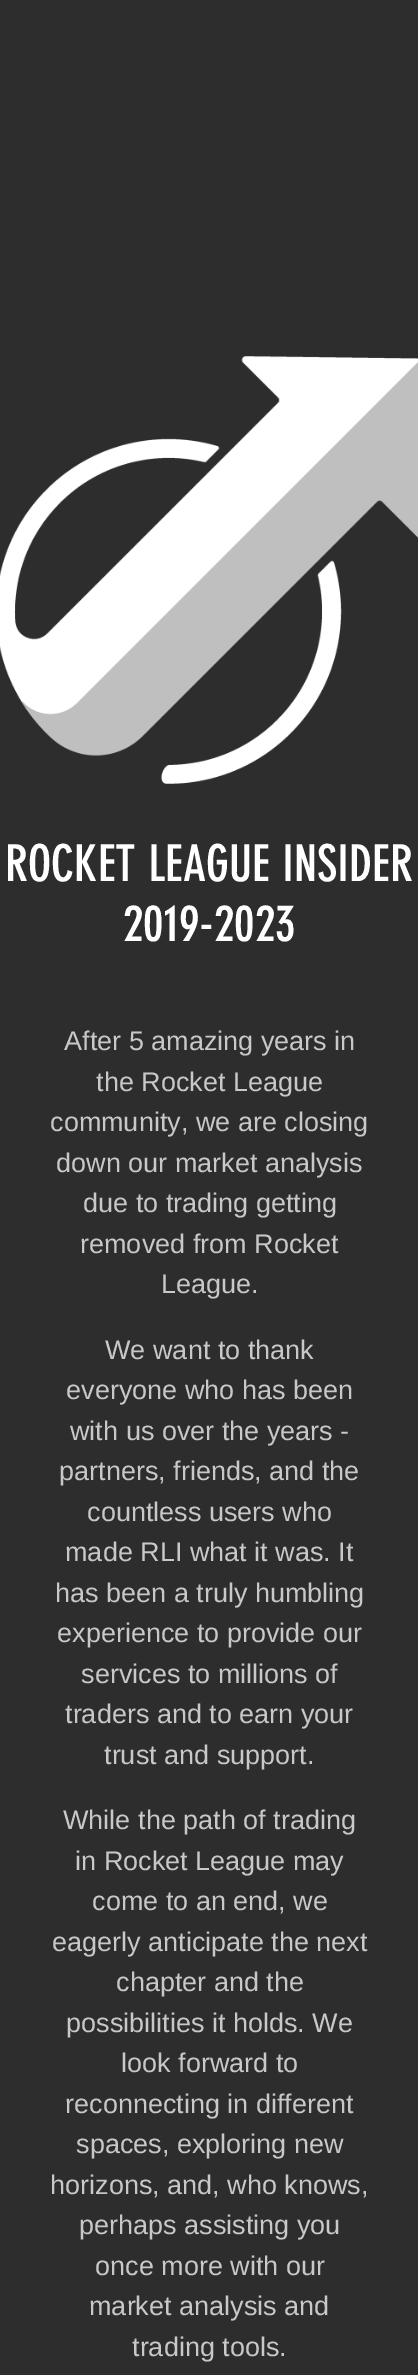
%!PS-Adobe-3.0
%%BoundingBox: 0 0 418 2375
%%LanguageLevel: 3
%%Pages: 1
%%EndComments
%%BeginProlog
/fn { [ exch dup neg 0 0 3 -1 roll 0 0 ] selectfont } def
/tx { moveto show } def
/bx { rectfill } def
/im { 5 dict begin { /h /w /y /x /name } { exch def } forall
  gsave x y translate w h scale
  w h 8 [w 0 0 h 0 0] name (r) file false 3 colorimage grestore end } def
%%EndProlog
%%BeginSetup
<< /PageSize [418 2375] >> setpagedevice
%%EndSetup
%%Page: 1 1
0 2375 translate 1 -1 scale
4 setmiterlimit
0.176 setgray
0 0 418 2375 bx
(image0.raw) 0 356 418 428 im
/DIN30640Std-Bold 50 fn
1 setgray
(ROCKET LEAGUE INSIDER) 5 881 tx
(2019-2023) 123 941 tx
/LiberationSans-Regular 27 fn
0.784 setgray
(After 5 amazing years in) 64 1050 tx
(the Rocket League) 96 1091 tx
(community, we are closing) 50 1131 tx
(down our market analysis) 56 1172 tx
(due to trading getting) 83 1212 tx
(removed from Rocket) 80 1253 tx
(League.) 161 1293 tx
(We want to thank) 105 1359 tx
(everyone who has been) 66 1399 tx
(with us over the years -) 70 1440 tx
(partners, friends, and the) 59 1480 tx
(countless users who) 87 1521 tx
(made RLI what it was. It) 65 1561 tx
(has been a truly humbling) 55 1602 tx
(experience to provide our) 57 1642 tx
(services to millions of) 81 1683 tx
(traders and to earn your) 65 1723 tx
(trust and support.) 104 1764 tx
(While the path of trading) 63 1829 tx
(in Rocket League may) 75 1870 tx
(come to an end, we) 92 1910 tx
(eagerly anticipate the next) 52 1951 tx
(chapter and the) 116 1991 tx
(possibilities it holds. We) 66 2032 tx
(look forward to) 121 2072 tx
(reconnecting in different) 65 2113 tx
(spaces, exploring new) 76 2153 tx
(horizons, and, who knows,) 50 2194 tx
(perhaps assisting you) 79 2234 tx
(once more with our) 95 2275 tx
(market analysis and) 89 2315 tx
(trading tools.) 132 2356 tx
showpage
%%EOF
